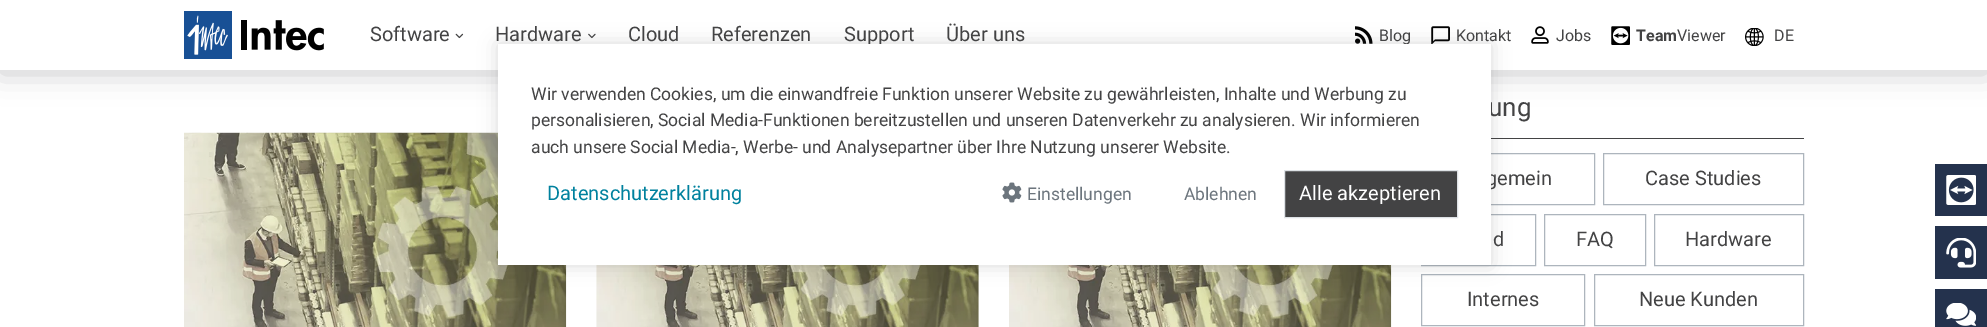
%!PS-Adobe-3.0
%%BoundingBox: 0 0 1987 327
%%LanguageLevel: 3
%%Pages: 1
%%EndComments
%%BeginProlog
/m { moveto } bind def
/l { lineto } bind def
/h { closepath } bind def
/f { fill } bind def
/S { stroke } bind def
/q { gsave } bind def
/Q { grestore } bind def
/fn { [ exch dup neg 0 0 3 -1 roll 0 0 ] selectfont } def
/tx { moveto show } def
/bx { rectfill } def
/al { dup .setfillconstantalpha .setstrokeconstantalpha } def
/rr { 5 dict begin { /r /h /w /y /x } { exch def } forall
  x r add y moveto x w add y 2 copy h add r arct x w add y h add x 1 index r arct
  x y h add x y r arct x y 2 copy exch w add exch r arct closepath end } def
/sh { 12 dict begin { /a /b /q /h /w /y /x } { exch def } forall gsave /was 0 def
  9 -2 -9 { dup b mul 4 div /e exch def 1 sub .425 mul 2.718 exch exp 1 add a .99 .min exch div /now exch def
    1 1 now sub 1 was sub div sub al /was now def
    w h .min e 2 mul add 0 gt { x e sub y e sub w e 2 mul add h e 2 mul add
      q e add b .6 mul add w h .min 2 div e add .min 0 .max rr fill } if } for grestore end } def
/im { 5 dict begin { /h /w /y /x /name } { exch def } forall
  gsave x y translate w h scale
  w h 8 [w 0 0 h 0 0] name (r) file false 3 colorimage grestore end } def
%%EndProlog
%%BeginSetup
<< /PageSize [1987 327] /PageUsesTransparency true >> setpagedevice
%%EndSetup
%%Page: 1 1
0 .pushpdf14devicefilter
0 327 translate 1 -1 scale
4 setmiterlimit
1 setgray
0 0 1987 327 bx
0.263 0.263 0.267 setrgbcolor
0 3 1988 70 0 15 0.3 sh
1 setgray
0 0 1987 70 bx
(image0.raw) 184 11 140 48 im
/Roboto-Regular 20 fn
0.263 0.263 0.267 setrgbcolor
(Software) 370 41 tx
(image1.raw) 455 33 9 6 im
(Hardware) 495 41 tx
(image2.raw) 588 33 8 6 im
(Cloud) 628 41 tx
(Referenzen) 711 41 tx
(Support) 844 41 tx
(Über uns) 946 41 tx
(image3.raw) 1355 26 18 18 im
/Roboto-Regular 16 fn
(Blog) 1379 41 tx
(image4.raw) 1431 26 19 18 im
(Kontakt) 1456 41 tx
(image5.raw) 1531 26 18 18 im
(Jobs) 1556 41 tx
(image6.raw) 1611 26 19 19 im
/Roboto-Bold 16 fn
(Team) 1636 41 tx
/Roboto-Regular 16 fn
(Viewer) 1677 41 tx
(image7.raw) 1745 28 19 18 im
(DE) 1774 41 tx
(image9.raw) 184 132 383 195 im
(image10.raw) 596 265 383 62 im
(image11.raw) 1009 265 383 62 im
1491 138 313 1 bx
0.678 0.71 0.741 setrgbcolor
1421.5 153.5 173 51 rectstroke
1421.5 214.5 114 51 rectstroke
1421.5 274.5 163 51 rectstroke
0.263 0.263 0.267 setrgbcolor
498 44 993 221 0 9.5 0.2 sh
/Roboto-Regular 26 fn
(ung) 1488 116 tx
/Roboto-Regular 20 fn
(gemein) 1486 185 tx
1 setgray
498 44 993 221 bx
/Roboto-Regular 17.5 fn
0.263 0.263 0.267 setrgbcolor
(Wir verwenden Cookies, um die einwandfreie Funktion unserer Website zu gewährleisten, Inhalte und Werbung zu) 531 100 tx
(personalisieren, Social Media-Funktionen bereitzustellen und unseren Datenverkehr zu analysieren. Wir informieren) 531 126 tx
(auch unsere Social Media-, Werbe- und Analysepartner über Ihre Nutzung unserer Website.) 531 153 tx
/Roboto-Regular 20 fn
0 0.506 0.62 setrgbcolor
(Datenschutzerklärung) 547 200 tx
(image8.raw) 1002 182 20 21 im
/Roboto-Regular 17.5 fn
0.424 0.459 0.49 setrgbcolor
(Einstellungen) 1027 200 tx
(Ablehnen) 1184 200 tx
0.263 0.263 0.267 setrgbcolor
1284.5 170.5 m 1457.5 170.5 l 1457.5 217.5 l 1284.5 217.5 l h q f Q
0.871 0.886 0.902 setrgbcolor
S
/Roboto-Regular 20 fn
1 setgray
(Alle akzeptieren) 1299 200 tx
0.678 0.71 0.741 setrgbcolor
1603.5 153.5 200 51 rectstroke
0.263 0.263 0.267 setrgbcolor
(Case Studies) 1645 185 tx
(d) 1493 246 tx
0.678 0.71 0.741 setrgbcolor
1544.5 214.5 101 51 rectstroke
0.263 0.263 0.267 setrgbcolor
(FAQ) 1576 246 tx
0.678 0.71 0.741 setrgbcolor
1654.5 214.5 149 51 rectstroke
0.263 0.263 0.267 setrgbcolor
(Hardware) 1685 246 tx
(Internes) 1467 306 tx
0.678 0.71 0.741 setrgbcolor
1594.5 274.5 209 51 rectstroke
0.263 0.263 0.267 setrgbcolor
(Neue Kunden) 1639 306 tx
0.141 0.196 0.302 setrgbcolor
1935 164 52 52 bx
(image12.raw) 1946 175 30 30 im
1935 226 52 53 bx
(image13.raw) 1946 238 30 30 im
1935 289 52 38 bx
(image14.raw) 1946 303 30 23 im
.poppdf14devicefilter showpage
%%EOF
